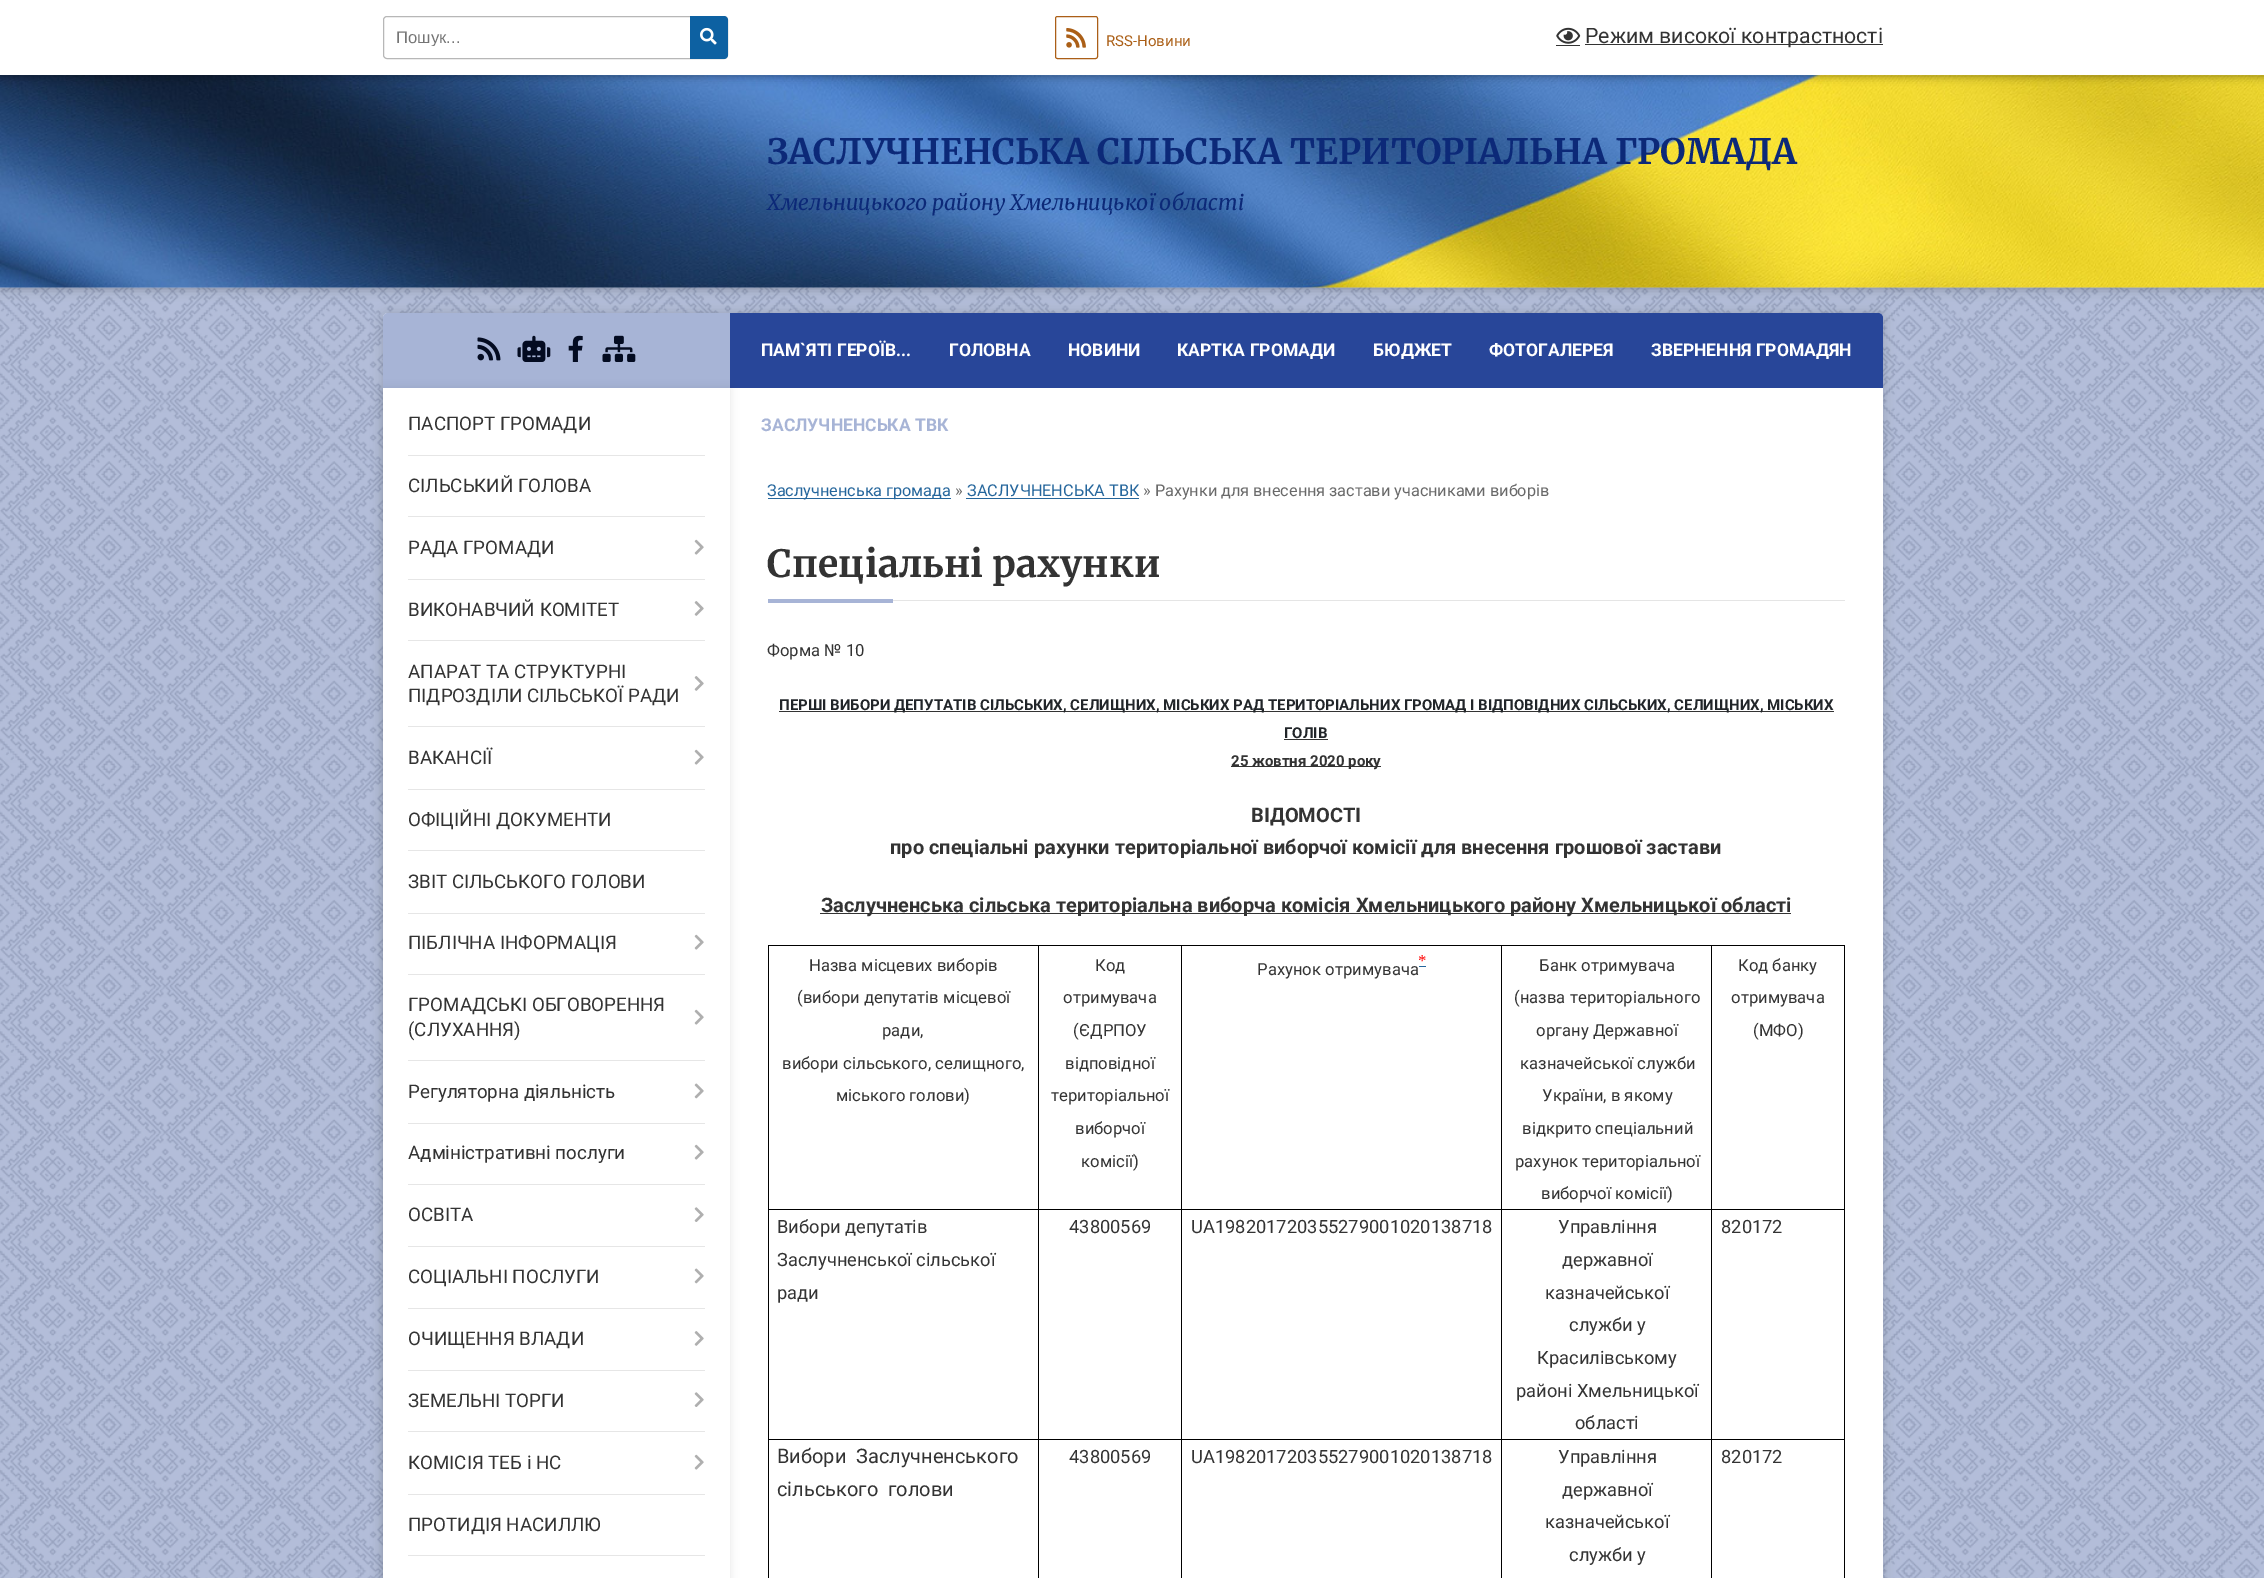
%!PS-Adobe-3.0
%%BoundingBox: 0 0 2264 1578
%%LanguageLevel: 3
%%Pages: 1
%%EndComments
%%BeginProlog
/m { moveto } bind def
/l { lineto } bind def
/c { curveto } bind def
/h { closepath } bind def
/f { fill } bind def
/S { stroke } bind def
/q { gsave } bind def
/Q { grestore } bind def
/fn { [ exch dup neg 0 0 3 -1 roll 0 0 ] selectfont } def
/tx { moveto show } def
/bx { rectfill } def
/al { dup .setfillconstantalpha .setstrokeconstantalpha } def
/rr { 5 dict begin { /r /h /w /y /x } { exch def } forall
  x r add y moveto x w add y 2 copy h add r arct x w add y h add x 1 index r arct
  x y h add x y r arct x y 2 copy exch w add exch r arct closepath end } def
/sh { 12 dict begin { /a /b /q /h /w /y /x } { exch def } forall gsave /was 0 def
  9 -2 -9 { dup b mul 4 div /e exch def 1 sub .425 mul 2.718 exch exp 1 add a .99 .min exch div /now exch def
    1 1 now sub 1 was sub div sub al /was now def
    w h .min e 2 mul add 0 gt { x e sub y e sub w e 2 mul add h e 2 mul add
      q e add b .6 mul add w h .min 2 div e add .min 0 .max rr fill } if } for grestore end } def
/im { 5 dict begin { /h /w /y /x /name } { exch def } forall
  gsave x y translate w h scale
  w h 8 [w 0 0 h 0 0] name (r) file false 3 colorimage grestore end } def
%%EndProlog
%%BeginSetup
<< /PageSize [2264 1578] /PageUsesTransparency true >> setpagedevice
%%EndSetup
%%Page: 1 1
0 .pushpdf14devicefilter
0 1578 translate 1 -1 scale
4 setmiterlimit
0.655 0.706 0.839 setrgbcolor
0 0 2264 1578 bx
(image0.raw) 0 287 2264 1291 im
0 setgray
0 75 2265 213 0 6 0.3 sh
(image4.raw) 0 75 2264 213 im
0 1 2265 75 0 4.5 0.4 sh
1 setgray
0 0 2264 75 bx
0.718 setgray
383.5 16.5 344 42 3.5 rr S
q
396 28 280 18 rectclip
/LiberationSans-Regular 16.7 fn
0.459 setgray
(Пошук...) 396 43 tx
Q
0.051 0.38 0.635 setrgbcolor
690 16 m 724 16 l 726 16 728 18 728 20 c 728 55 l 728 57 726 59 724 59 c 690 59 l h f
(image1.raw) 700 27 17 18 im
0.671 0.373 0.09 setrgbcolor
1055.5 16.5 42 42 2 rr S
(image2.raw) 1066 28 20 20 im
/Roboto-Regular 15 fn
(RSS-Новини) 1106 46 tx
(image3.raw) 1556 27 25 17 im
0.2 setgray
1556 45 24 1 bx
1585 44 298 1 bx
/Roboto-Regular 21.25 fn
(Режим високої контрастності) 1585 43 tx
/Merriweather-Light 35 fn
0.047 0.161 0.471 setrgbcolor
(ЗАСЛУЧНЕНСЬКА СІЛЬСЬКА ТЕРИТОРІАЛЬНА ГРОМАДА) 767 164 tx
/Merriweather-LightItalic 21.25 fn
(Хмельницького району Хмельницької області) 767 210 tx
0 setgray
383 313 1500 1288 5 6 0.15 sh
1 setgray
383 313 1500 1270 5 rr f
0.655 0.706 0.839 setrgbcolor
388 313 m 730 313 l 730 388 l 383 388 l 383 318 l 383 315 385 313 388 313 c h f
(image5.raw) 477 337 24 24 im
(image6.raw) 517 335 34 27 im
(image7.raw) 568 335 15 27 im
(image8.raw) 602 335 34 27 im
0.157 0.275 0.6 setrgbcolor
730 313 m 1878 313 l 1881 313 1883 315 1883 318 c 1883 388 l 730 388 l h f
q
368 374 m 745 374 l 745 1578 l 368 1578 l h 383 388 m 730 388 l 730 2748 l 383 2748 l h eoclip newpath
0 setgray
383 389 347 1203 0 4.5 0.1 sh
Q
/Roboto-Regular 18.75 fn
0.2 setgray
(ПАСПОРТ ГРОМАДИ) 408 430 tx
0.902 setgray
408 455 297 1 bx
0.2 setgray
(СІЛЬСЬКИЙ ГОЛОВА) 408 492 tx
0.902 setgray
408 516 297 1 bx
0.2 setgray
(РАДА ГРОМАДИ) 408 554 tx
0.902 setgray
408 579 297 1 bx
(image9.raw) 694 539 10 16 im
0.2 setgray
(ВИКОНАВЧИЙ КОМІТЕТ) 408 616 tx
0.902 setgray
408 640 297 1 bx
(image10.raw) 694 601 10 15 im
0.2 setgray
(АПАРАТ ТА СТРУКТУРНІ) 408 678 tx
(ПІДРОЗДІЛИ СІЛЬСЬКОЇ РАДИ) 408 702 tx
0.902 setgray
408 726 297 1 bx
(image10.raw) 694 676 10 15 im
0.2 setgray
(ВАКАНСІЇ) 408 764 tx
0.902 setgray
408 789 297 1 bx
(image9.raw) 694 749 10 16 im
0.2 setgray
(ОФІЦІЙНІ ДОКУМЕНТИ) 408 826 tx
0.902 setgray
408 850 297 1 bx
0.2 setgray
(ЗВІТ СІЛЬСЬКОГО ГОЛОВИ) 408 888 tx
0.902 setgray
408 913 297 1 bx
0.2 setgray
(ПІБЛІЧНА ІНФОРМАЦІЯ) 408 949 tx
0.902 setgray
408 974 297 1 bx
(image9.raw) 694 934 10 16 im
0.2 setgray
(ГРОМАДСЬКІ ОБГОВОРЕННЯ) 408 1011 tx
(\(СЛУХАННЯ\)) 408 1036 tx
0.902 setgray
408 1060 297 1 bx
(image9.raw) 694 1009 10 16 im
0.2 setgray
(Регуляторна діяльність) 408 1098 tx
0.902 setgray
408 1123 297 1 bx
(image11.raw) 694 1083 10 16 im
0.2 setgray
(Адміністративні послуги) 408 1159 tx
0.902 setgray
408 1184 297 1 bx
(image9.raw) 694 1144 10 16 im
0.2 setgray
(ОСВІТА) 408 1221 tx
0.902 setgray
408 1246 297 1 bx
(image12.raw) 694 1207 10 15 im
0.2 setgray
(СОЦІАЛЬНІ ПОСЛУГИ) 408 1283 tx
0.902 setgray
408 1308 297 1 bx
(image11.raw) 694 1268 10 16 im
0.2 setgray
(ОЧИЩЕННЯ ВЛАДИ) 408 1345 tx
0.902 setgray
408 1370 297 1 bx
(image10.raw) 694 1331 10 15 im
0.2 setgray
(ЗЕМЕЛЬНІ ТОРГИ) 408 1407 tx
0.902 setgray
408 1431 297 1 bx
(image12.raw) 694 1392 10 15 im
0.2 setgray
(КОМІСІЯ ТЕБ і НС) 408 1469 tx
0.902 setgray
408 1494 297 1 bx
(image9.raw) 694 1454 10 16 im
0.2 setgray
(ПРОТИДІЯ НАСИЛЛЮ) 408 1531 tx
0.902 setgray
408 1555 297 1 bx
/Roboto-Bold 17.5 fn
1 setgray
(ПАМ`ЯТІ ГЕРОЇВ...) 761 356 tx
(ГОЛОВНА) 949 356 tx
(НОВИНИ) 1068 356 tx
(КАРТКА ГРОМАДИ) 1177 356 tx
(БЮДЖЕТ) 1373 356 tx
(ФОТОГАЛЕРЕЯ) 1489 356 tx
(ЗВЕРНЕННЯ ГРОМАДЯН) 1651 356 tx
0.655 0.706 0.839 setrgbcolor
(ЗАСЛУЧНЕНСЬКА ТВК) 761 431 tx
0.145 0.4 0.612 setrgbcolor
768 498 183 1 bx
/Roboto-Regular 16.25 fn
(Заслучненська громада) 767 496 tx
0.412 setgray
(») 955 496 tx
0.145 0.4 0.612 setrgbcolor
(ЗАСЛУЧНЕНСЬКА ТВК) 967 496 tx
966 498 173 1 bx
0.412 setgray
(» Рахунки для внесення застави учасниками виборів) 1143 496 tx
0.898 setgray
893 600 952 1 bx
/Merriweather-Light 37.5 fn
0.2 setgray
(Спеціальні рахунки) 767 577 tx
0.655 0.706 0.839 setrgbcolor
768 599 125 4 bx
/Roboto-Regular 16.7 fn
0.2 setgray
(Форма № 10) 767 656 tx
779 711 1055 1 bx
/Roboto-Bold 15 fn
0.129 0.145 0.161 setrgbcolor
(ПЕРШІ ВИБОРИ ДЕПУТАТІВ СІЛЬСЬКИХ, СЕЛИЩНИХ, МІСЬКИХ РАД ТЕРИТОРІАЛЬНИХ ГРОМАД І ВІДПОВІДНИХ СІЛЬСЬКИХ, СЕЛИЩНИХ, МІСЬКИХ) 779 710 tx
(ГОЛІВ) 1284 738 tx
0.2 setgray
1284 739 44 1 bx
1231 766 150 1 bx
(25 жовтня 2020 року) 1231 766 tx
/Roboto-Bold 20 fn
(ВІДОМОСТІ) 1251 822 tx
(про спеціальні рахунки територіальної виборчої комісії для внесення грошової застави) 890 854 tx
820 913 971 1 bx
(Заслучненська сільська територіальна виборча комісія Хмельницького району Хмельницької області) 821 912 tx
0 setgray
768 945 1077 1 bx
1844 945 1 633 bx
768 945 1 633 bx
1711 1439 1 139 bx
1711 1439 134 1 bx
1711 1209 1 231 bx
1711 1209 134 1 bx
1711 945 1 265 bx
1501 1439 1 139 bx
1501 1439 212 1 bx
1501 1209 1 231 bx
1501 1209 212 1 bx
1501 945 1 265 bx
1181 1439 1 139 bx
1181 1439 322 1 bx
1181 1209 1 231 bx
1181 1209 322 1 bx
1181 945 1 265 bx
1038 1439 1 139 bx
1038 1439 145 1 bx
1038 1209 1 231 bx
1038 1209 145 1 bx
1038 945 1 265 bx
768 1209 271 1 bx
/Roboto-Regular 16.7 fn
0.2 setgray
(Назва місцевих виборів) 809 971 tx
(\(вибори депутатів місцевої) 797 1003 tx
(ради,) 882 1036 tx
(вибори сільського, селищного,) 782 1069 tx
(міського голови\)) 836 1101 tx
(Код) 1095 971 tx
(отримувача) 1063 1003 tx
(\(ЄДРПОУ) 1073 1036 tx
(відповідної) 1065 1069 tx
(територіальної) 1051 1101 tx
(виборчої) 1075 1134 tx
(комісії\)) 1081 1167 tx
/LiberationSerif-Regular 16.7 fn
1 0 0 setrgbcolor
(*) 1418 966 tx
/Roboto-Regular 16.7 fn
0.2 setgray
(Рахунок отримувача) 1257 975 tx
0.145 0.4 0.612 setrgbcolor
1419 966 7 1 bx
0.2 setgray
(Банк отримувача) 1539 971 tx
(\(назва територіального) 1514 1003 tx
(органу Державної) 1536 1036 tx
(казначейської служби) 1520 1069 tx
(України, в якому) 1542 1101 tx
(відкрито спеціальний) 1522 1134 tx
(рахунок територіальної) 1515 1167 tx
(виборчої комісії\)) 1541 1199 tx
(Код банку) 1738 971 tx
(отримувача) 1731 1003 tx
(\(МФО\)) 1753 1036 tx
0 setgray
768 1439 271 1 bx
/Roboto-Regular 18.3 fn
0.2 setgray
(Вибори депутатів) 777 1233 tx
(Заслучненської сільської) 777 1266 tx
(ради) 777 1299 tx
(43800569) 1069 1233 tx
(UA198201720355279001020138718) 1191 1233 tx
(Управління) 1558 1233 tx
(державної) 1562 1266 tx
(казначейської) 1545 1299 tx
(служби у) 1569 1331 tx
(Красилівському) 1537 1364 tx
(районі Хмельницької) 1516 1397 tx
(області) 1575 1429 tx
(820172) 1721 1233 tx
/Roboto-Regular 20 fn
(Вибори  Заслучненського) 777 1463 tx
(сільського  голови) 777 1496 tx
/Roboto-Regular 18.3 fn
(43800569) 1069 1463 tx
(UA198201720355279001020138718) 1191 1463 tx
(Управління) 1558 1463 tx
(державної) 1562 1496 tx
(казначейської) 1545 1528 tx
(служби у) 1569 1561 tx
(820172) 1721 1463 tx
.poppdf14devicefilter showpage
%%EOF
